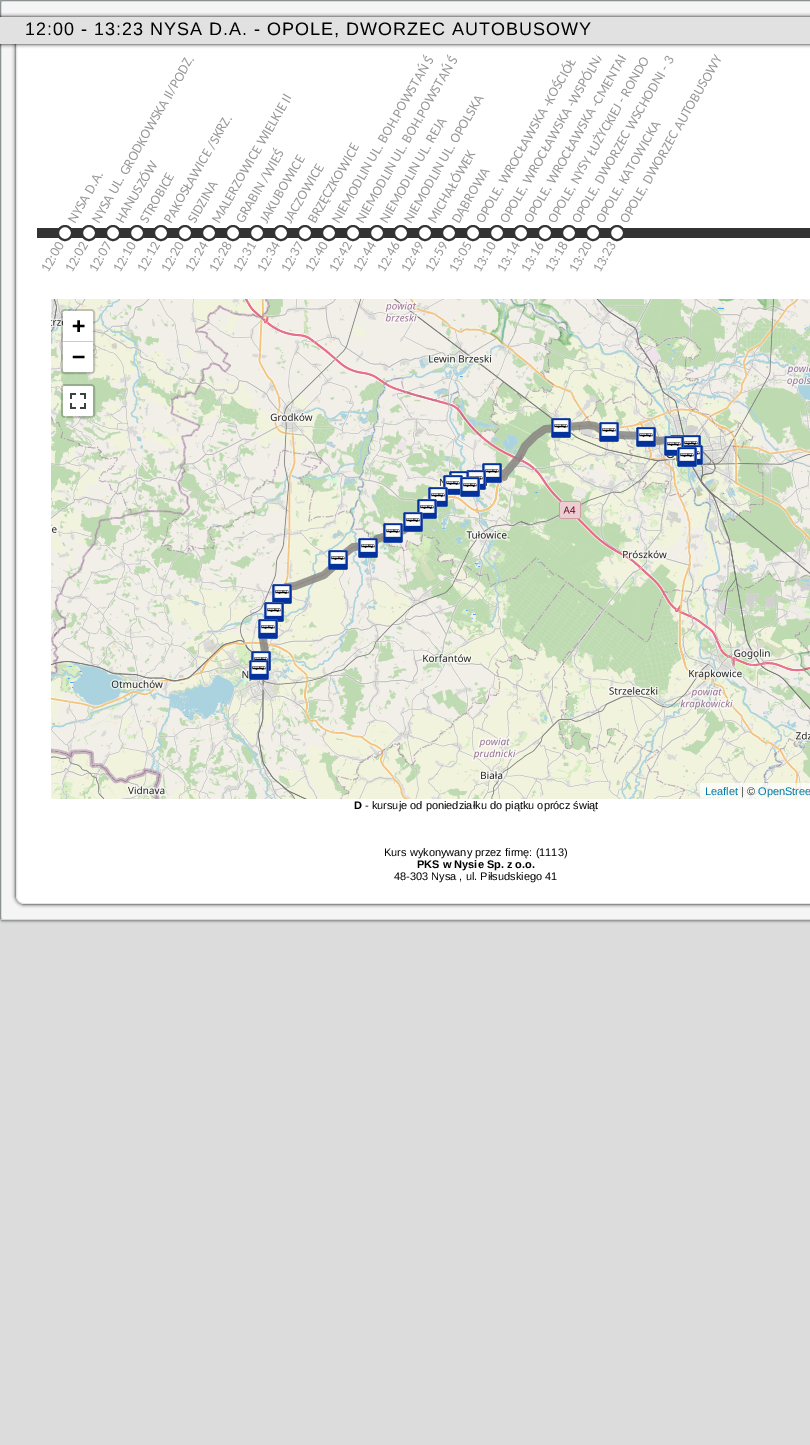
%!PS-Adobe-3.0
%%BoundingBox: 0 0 810 1445
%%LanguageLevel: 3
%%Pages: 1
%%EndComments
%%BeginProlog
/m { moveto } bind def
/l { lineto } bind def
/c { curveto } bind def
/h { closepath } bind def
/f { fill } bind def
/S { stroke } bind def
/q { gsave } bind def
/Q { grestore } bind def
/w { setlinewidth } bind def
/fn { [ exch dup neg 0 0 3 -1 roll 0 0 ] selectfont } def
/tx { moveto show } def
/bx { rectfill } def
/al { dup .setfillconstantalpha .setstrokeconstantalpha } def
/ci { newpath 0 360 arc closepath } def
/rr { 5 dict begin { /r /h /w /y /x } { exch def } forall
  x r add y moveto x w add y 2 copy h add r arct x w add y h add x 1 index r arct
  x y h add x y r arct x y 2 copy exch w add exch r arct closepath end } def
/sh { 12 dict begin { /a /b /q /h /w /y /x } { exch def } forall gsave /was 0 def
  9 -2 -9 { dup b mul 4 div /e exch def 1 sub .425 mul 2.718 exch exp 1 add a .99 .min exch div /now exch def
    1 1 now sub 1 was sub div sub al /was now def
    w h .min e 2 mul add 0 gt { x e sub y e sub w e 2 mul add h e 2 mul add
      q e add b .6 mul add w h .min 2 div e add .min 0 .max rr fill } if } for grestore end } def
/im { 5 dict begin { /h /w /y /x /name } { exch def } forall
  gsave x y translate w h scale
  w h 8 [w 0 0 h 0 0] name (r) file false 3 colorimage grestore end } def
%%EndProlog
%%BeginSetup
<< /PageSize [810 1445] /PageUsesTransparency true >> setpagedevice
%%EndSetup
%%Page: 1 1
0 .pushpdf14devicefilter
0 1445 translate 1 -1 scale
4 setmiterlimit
0.863 setgray
0 0 810 1445 bx
0 setgray
0 0 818 920 3 1.5 1 sh
0.961 setgray
0 0 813 920 3 rr f
0.82 0.851 0.863 setrgbcolor
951 1 m 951.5 3 l 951.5 917 l 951 919 l 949 919.5 l 3 919.5 l 1 919 l S
0.545 0.569 0.576 setrgbcolor
1 919 m 0.5 917 l 0.5 3 l 1 1 l 3 0.5 l 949 0.5 l 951 1 l S
0 setgray
16 31 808 873 8 2 1 sh
1 setgray
16 31 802 873 8 rr f
0.1 al
0 setgray
16.5 31.5 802 872 7.5 rr S
1 al
-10 17 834 27 8 2 1 sh
0.882 setgray
0 17 810 27 bx
/LiberationSans-Regular 18 fn
0 setgray
25 35 m 1 0 (12:00 - 13:23 NYSA D.A. - OPOLE, DWORZEC AUTOBUSOWY) ashow
0.2 setgray
37 228 773 10 bx
1 setgray
329 233 7 ci q f Q
0.2 setgray
2 w
S
/Carlito-Regular 14 fn
0.596 setgray
q 75 224 translate -60 rotate 0 0 m (NYSA D.A.) show Q
q 99 224 translate -60 rotate 0 0 m (NYSA UL. GRODKOWSKA II/PODZ.) show Q
q 123 224 translate -60 rotate 0 0 m (HANUSZÓW) show Q
q 147 224 translate -60 rotate 0 0 m (STROBICE) show Q
q 171 224 translate -60 rotate 0 0 m (PAKOSŁAWICE /SKRZ.) show Q
q 195 224 translate -60 rotate 0 0 m (SIDZINA) show Q
q 219 224 translate -60 rotate 0 0 m (MALERZOWICE WIELKIE II) show Q
q 243 224 translate -60 rotate 0 0 m (GRABIN /WIEŚ) show Q
q 267 224 translate -60 rotate 0 0 m (JAKUBOWICE) show Q
q 291 224 translate -60 rotate 0 0 m (JACZOWICE) show Q
q 315 224 translate -60 rotate 0 0 m (BRZĘCZKOWICE) show Q
q
328 217.5 m 423 53 l 438 61.5 l 343 226 l h clip newpath
q 339 224 translate -60 rotate 0 0 m (NIEMODLIN UL. BOH.POWSTAŃ ŚL.C) show Q
Q
q
299.5 269.5 m 317 239 l 331.5 247.5 l 314 278 l h clip newpath
q 312 273 translate -60 rotate 0 0 m (12:40) show Q
Q
1 setgray
353 233 7 ci q f Q
0.2 setgray
S
q
352 217.5 m 447 53 l 462 61.5 l 367 226 l h clip newpath
0.596 setgray
q 363 224 translate -60 rotate 0 0 m (NIEMODLIN UL. BOH.POWSTAŃ ŚL.K) show Q
Q
0.596 setgray
q 336 273 translate -60 rotate 0 0 m (12:42) show Q
1 setgray
521 233 7 ci q f Q
0.2 setgray
S
0.596 setgray
q 387 224 translate -60 rotate 0 0 m (NIEMODLIN UL. REJA) show Q
q 411 224 translate -60 rotate 0 0 m (NIEMODLIN UL. OPOLSKA) show Q
q 435 224 translate -60 rotate 0 0 m (MICHAŁÓWEK) show Q
q 459 224 translate -60 rotate 0 0 m (DĄBROWA) show Q
q 483 224 translate -60 rotate 0 0 m (OPOLE, WROCŁAWSKA -KOŚCIÓŁ) show Q
q
496 217.5 m 591 53 l 606 61.5 l 511 226 l h clip newpath
q 507 224 translate -60 rotate 0 0 m (OPOLE, WROCŁAWSKA -WSPÓLNA /P) show Q
Q
q
520 217.5 m 615 53 l 630 61.5 l 535 226 l h clip newpath
q 531 224 translate -60 rotate 0 0 m (OPOLE, WROCŁAWSKA -CMENTARZ) show Q
Q
q 504 273 translate -60 rotate 0 0 m (13:14) show Q
1 setgray
617 233 7 ci q f Q
0.2 setgray
S
0.596 setgray
q 555 224 translate -60 rotate 0 0 m (OPOLE, NYSY ŁUŻYCKIEJ - RONDO) show Q
q 579 224 translate -60 rotate 0 0 m (OPOLE, DWORZEC WSCHODNI - 3) show Q
q 603 224 translate -60 rotate 0 0 m (OPOLE, KATOWICKA) show Q
q
616 217.5 m 711 53 l 726 61.5 l 631 226 l h clip newpath
q 627 224 translate -60 rotate 0 0 m (OPOLE, DWORZEC AUTOBUSOWY) show Q
Q
q 600 273 translate -60 rotate 0 0 m (13:23) show Q
1 setgray
89 233 7 ci q f Q
0.2 setgray
S
0.596 setgray
q 72 273 translate -60 rotate 0 0 m (12:02) show Q
1 setgray
497 233 7 ci q f Q
0.2 setgray
S
q
467.5 269.5 m 485 239 l 499.5 247.5 l 482 278 l h clip newpath
0.596 setgray
q 480 273 translate -60 rotate 0 0 m (13:10) show Q
Q
1 setgray
569 233 7 ci q f Q
0.2 setgray
S
0.596 setgray
q 552 273 translate -60 rotate 0 0 m (13:18) show Q
1 setgray
161 233 7 ci q f Q
0.2 setgray
S
0.596 setgray
q 144 273 translate -60 rotate 0 0 m (12:12) show Q
1 setgray
209 233 7 ci q f Q
0.2 setgray
S
0.596 setgray
q 192 273 translate -60 rotate 0 0 m (12:24) show Q
1 setgray
401 233 7 ci q f Q
0.2 setgray
S
0.596 setgray
q 384 273 translate -60 rotate 0 0 m (12:46) show Q
1 setgray
473 233 7 ci q f Q
0.2 setgray
S
0.596 setgray
q 456 273 translate -60 rotate 0 0 m (13:05) show Q
1 setgray
545 233 7 ci q f Q
0.2 setgray
S
0.596 setgray
q 528 273 translate -60 rotate 0 0 m (13:16) show Q
1 setgray
233 233 7 ci q f Q
0.2 setgray
S
0.596 setgray
q 216 273 translate -60 rotate 0 0 m (12:28) show Q
1 setgray
305 233 7 ci q f Q
0.2 setgray
S
0.596 setgray
q 288 273 translate -60 rotate 0 0 m (12:37) show Q
1 setgray
377 233 7 ci q f Q
0.2 setgray
S
0.596 setgray
q 360 273 translate -60 rotate 0 0 m (12:44) show Q
1 setgray
593 233 7 ci q f Q
0.2 setgray
S
q
563.5 269.5 m 581 239 l 595.5 247.5 l 578 278 l h clip newpath
0.596 setgray
q 576 273 translate -60 rotate 0 0 m (13:20) show Q
Q
1 setgray
113 233 7 ci q f Q
0.2 setgray
S
0.596 setgray
q 96 273 translate -60 rotate 0 0 m (12:07) show Q
1 setgray
257 233 7 ci q f Q
0.2 setgray
S
0.596 setgray
q 240 273 translate -60 rotate 0 0 m (12:31) show Q
1 setgray
425 233 7 ci q f Q
0.2 setgray
S
0.596 setgray
q 408 273 translate -60 rotate 0 0 m (12:49) show Q
1 setgray
65 233 7 ci q f Q
0.2 setgray
S
q
35.5 269.5 m 53 239 l 67.5 247.5 l 50 278 l h clip newpath
0.596 setgray
q 48 273 translate -60 rotate 0 0 m (12:00) show Q
Q
1 setgray
137 233 7 ci q f Q
0.2 setgray
S
q
107.5 269.5 m 125 239 l 139.5 247.5 l 122 278 l h clip newpath
0.596 setgray
q 120 273 translate -60 rotate 0 0 m (12:10) show Q
Q
1 setgray
185 233 7 ci q f Q
0.2 setgray
S
q
155.5 269.5 m 173 239 l 187.5 247.5 l 170 278 l h clip newpath
0.596 setgray
q 168 273 translate -60 rotate 0 0 m (12:20) show Q
Q
1 setgray
281 233 7 ci q f Q
0.2 setgray
S
0.596 setgray
q 264 273 translate -60 rotate 0 0 m (12:34) show Q
1 setgray
449 233 7 ci q f Q
0.2 setgray
S
0.596 setgray
q 432 273 translate -60 rotate 0 0 m (12:59) show Q
(image0.raw) 51 299 125 74 im
(image1.raw) 176 299 256 74 im
(image2.raw) 432 299 256 74 im
(image3.raw) 688 299 122 74 im
(image4.raw) 51 373 125 256 im
(image5.raw) 176 373 256 256 im
(image6.raw) 432 373 256 256 im
(image7.raw) 688 373 122 256 im
(image8.raw) 51 629 125 170 im
(image9.raw) 176 629 256 170 im
(image10.raw) 432 629 256 170 im
(image11.raw) 688 629 122 170 im
(image36.raw) 259 421 406 230 im
(image12.raw) 551 418 20 20 im
(image13.raw) 599 422 20 20 im
(image14.raw) 636 427 20 20 im
(image15.raw) 670 435 12 1 im
(image16.raw) 681 435 20 10 im
(image17.raw) 664 436 20 20 im
(image18.raw) 683 445 20 20 im
(image19.raw) 677 447 20 20 im
(image22.raw) 482 463 20 20 im
(image21.raw) 466 470 20 20 im
(image20.raw) 449 471 20 6 im
(image24.raw) 443 475 20 20 im
(image23.raw) 428 487 20 20 im
(image25.raw) 460 477 20 20 im
(image26.raw) 417 499 20 20 im
(image27.raw) 383 523 20 20 im
(image28.raw) 403 512 20 20 im
(image29.raw) 358 538 20 20 im
(image30.raw) 328 550 20 20 im
(image31.raw) 272 584 20 20 im
(image32.raw) 264 602 20 20 im
(image33.raw) 258 619 20 20 im
(image34.raw) 251 651 20 20 im
(image35.raw) 249 660 20 20 im
0.2 al
0 setgray
62 310 32 63 3 rr S
1 al
1 setgray
65 311 m 91 311 l 92 311 93 312 93 313 c 93 342 l 63 342 l 63 313 l 63 312 64 311 65 311 c h f
0.8 setgray
63 341 30 1 bx
/DejaVuSansMono-Bold 22 fn
0 setgray
(+) 72 333 tx
1 setgray
63 342 m 93 342 l 93 370 l 93 371 92 372 91 372 c 65 372 l 64 372 63 371 63 370 c h f
0 setgray
(−) 72 364 tx
0.2 al
62 385 32 32 3 rr S
1 al
1 setgray
63 386 30 30 2 rr f
(image37.raw) 70 393 16 16 im
0.7 al
700 783 110 16 bx
/LiberationSans-Regular 11 fn
1 al
0 0.471 0.659 setrgbcolor
(Leaflet) 705 795 tx
0.2 setgray
(| ©) 741 795 tx
0 0.471 0.659 setrgbcolor
(OpenStree) 758 795 tx
/LiberationSans-Bold 11 fn
0 setgray
(D) 354 809 tx
/LiberationSans-Regular 11 fn
(- kursuje od poniedziałku do piątku oprócz świąt) 365 809 tx
(Kurs wykonywany przez firmę: \(1113\)) 384 856 tx
/LiberationSans-Bold 11 fn
(PKS w Nysie Sp. z o.o.) 417 868 tx
/LiberationSans-Regular 11 fn
(48-303 Nysa , ul. Piłsudskiego 41) 394 880 tx
.poppdf14devicefilter showpage
%%EOF
